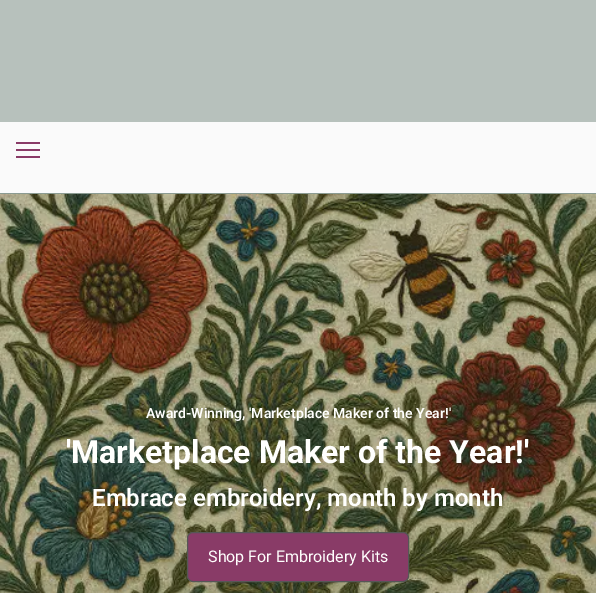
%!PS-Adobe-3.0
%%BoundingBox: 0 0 596 593
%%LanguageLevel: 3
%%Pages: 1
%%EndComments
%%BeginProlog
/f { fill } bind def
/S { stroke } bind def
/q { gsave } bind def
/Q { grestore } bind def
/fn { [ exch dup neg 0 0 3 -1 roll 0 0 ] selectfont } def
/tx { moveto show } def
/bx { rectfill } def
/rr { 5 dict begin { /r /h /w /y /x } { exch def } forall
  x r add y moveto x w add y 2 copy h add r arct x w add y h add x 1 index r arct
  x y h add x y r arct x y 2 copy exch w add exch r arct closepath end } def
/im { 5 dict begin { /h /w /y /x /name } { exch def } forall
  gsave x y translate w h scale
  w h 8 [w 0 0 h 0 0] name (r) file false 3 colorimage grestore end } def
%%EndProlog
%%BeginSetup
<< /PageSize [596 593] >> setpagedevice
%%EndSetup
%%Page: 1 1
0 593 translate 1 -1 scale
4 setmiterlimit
1 setgray
0 0 596 593 bx
0.718 0.757 0.737 setrgbcolor
0 0 596 122 bx
0.98 setgray
0 122 596 71 bx
0.537 0.231 0.404 setrgbcolor
16 142 24 2 bx
16 149 24 2 bx
16 156 24 2 bx
0.545 0.608 0.573 setrgbcolor
0 193 596 1 bx
(image0.raw) 0 194 596 399 im
/Roboto-SemiBold 14 fn
1 1 0.992 setrgbcolor
(Award-Winning, 'Marketplace Maker of the Year!') 146 418 tx
/Roboto-Bold 32 fn
('Marketplace Maker of the Year!') 66 463 tx
/Roboto-SemiBold 24 fn
(Embrace embroidery, month by month) 92 506 tx
0.537 0.231 0.404 setrgbcolor
187.5 532.5 221 49 5.5 rr q f Q
0.337 setgray
S
/Roboto-Regular 16 fn
1 1 0.992 setrgbcolor
(Shop For Embroidery Kits) 208 562 tx
showpage
%%EOF
